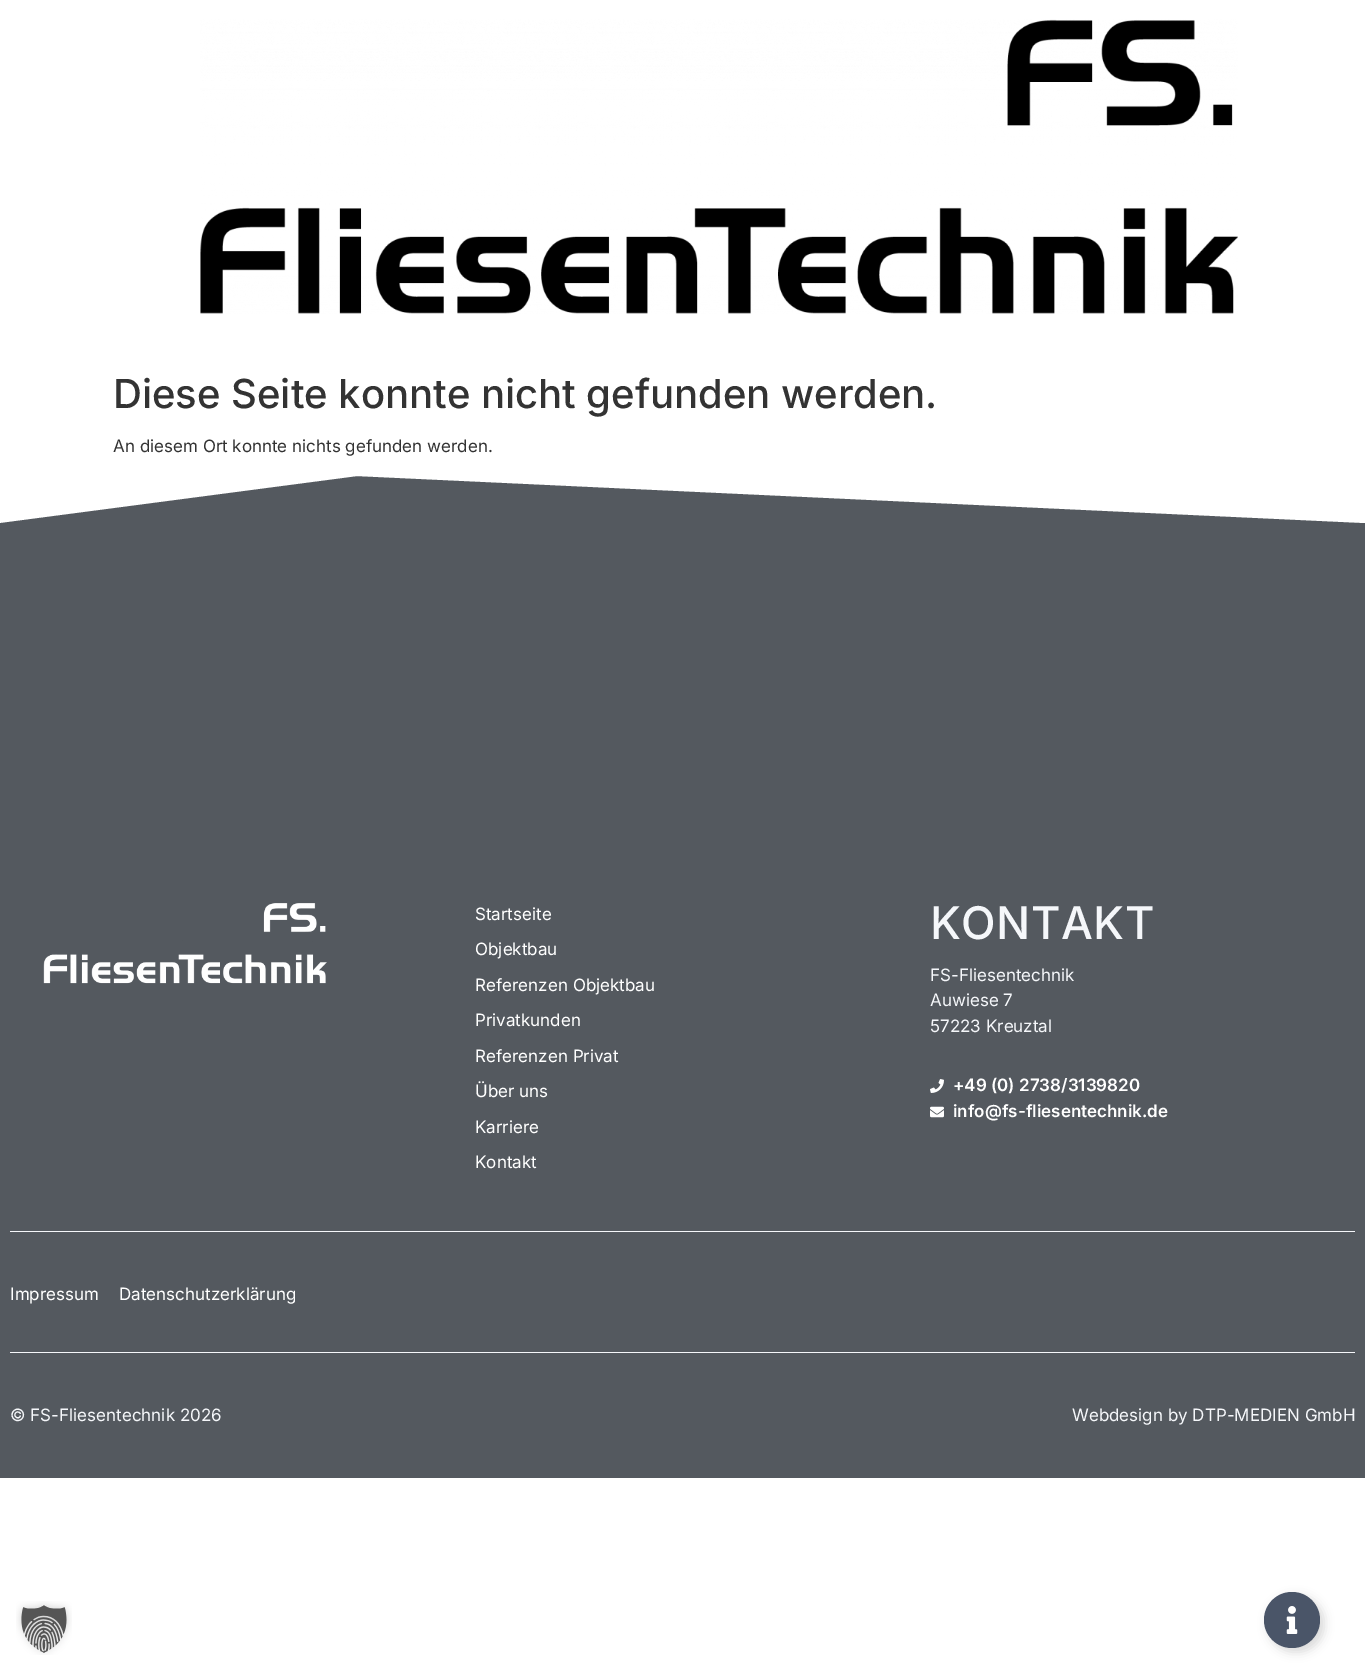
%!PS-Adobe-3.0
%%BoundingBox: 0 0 1365 1673
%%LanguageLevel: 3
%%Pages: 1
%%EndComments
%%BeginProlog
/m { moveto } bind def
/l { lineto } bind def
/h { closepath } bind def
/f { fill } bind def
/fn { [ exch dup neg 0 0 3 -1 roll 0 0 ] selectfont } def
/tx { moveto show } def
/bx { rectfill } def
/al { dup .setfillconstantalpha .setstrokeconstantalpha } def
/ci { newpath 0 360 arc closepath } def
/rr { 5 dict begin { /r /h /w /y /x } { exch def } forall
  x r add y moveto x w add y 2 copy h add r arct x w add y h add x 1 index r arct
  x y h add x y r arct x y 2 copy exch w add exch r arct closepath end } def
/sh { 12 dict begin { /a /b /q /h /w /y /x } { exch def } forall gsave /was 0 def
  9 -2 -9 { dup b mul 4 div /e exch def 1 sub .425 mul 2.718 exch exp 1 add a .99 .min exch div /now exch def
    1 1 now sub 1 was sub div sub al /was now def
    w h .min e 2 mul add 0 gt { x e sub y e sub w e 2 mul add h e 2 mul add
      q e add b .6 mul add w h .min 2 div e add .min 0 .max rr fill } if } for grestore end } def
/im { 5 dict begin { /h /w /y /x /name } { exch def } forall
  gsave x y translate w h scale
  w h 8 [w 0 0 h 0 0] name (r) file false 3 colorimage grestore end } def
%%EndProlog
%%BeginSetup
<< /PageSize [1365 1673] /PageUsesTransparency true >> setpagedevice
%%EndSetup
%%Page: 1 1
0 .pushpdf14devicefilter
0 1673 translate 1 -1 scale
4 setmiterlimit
1 setgray
0 0 1365 1673 bx
(image0.raw) 200 19 1038 295 im
/Inter-Medium 40 fn
0.2 setgray
(Diese Seite konnte nicht gefunden werden.) 113 408 tx
/Inter-Regular 17 fn
(An diesem Ort konnte nichts gefunden werden.) 113 452 tx
0.329 0.349 0.373 setrgbcolor
0 476 1365 1002 bx
1 setgray
357 476 m 1365 523 l 1365 473 l -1 473 l -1 523 l h f
(image1.raw) 43 903 284 81 im
(Startseite) 475 920 tx
(Objektbau) 475 955 tx
(Referenzen Objektbau) 475 991 tx
(Privatkunden) 475 1026 tx
(Referenzen Privat) 475 1062 tx
(Über uns) 475 1097 tx
(Karriere) 475 1133 tx
(Kontakt) 475 1168 tx
/Inter-Medium 45 fn
0.961 0.969 0.98 setrgbcolor
930 939 m 0.5 0 (KONTAKT) ashow
/Inter-Regular 17 fn
(FS-Fliesentechnik) 930 981 tx
(Auwiese 7) 930 1006 tx
(57223 Kreuztal) 930 1032 tx
(image2.raw) 930 1079 14 14 im
/Inter-SemiBold 17 fn
1 setgray
(+49 \(0\) 2738/3139820) 953 1091 tx
(image3.raw) 930 1106 14 12 im
(info@fs-fliesentechnik.de) 953 1117 tx
0.961 0.969 0.98 setrgbcolor
10 1231 1345 1 bx
/Inter-Regular 17 fn
1 setgray
(Impressum) 10 1300 tx
(Datenschutzerklärung) 119 1300 tx
0.961 0.969 0.98 setrgbcolor
10 1352 1345 1 bx
(© FS-Fliesentechnik 2026) 10 1421 tx
(Webdesign by DTP-MEDIEN GmbH) 1072 1421 tx
(image4.raw) 16 1601 56 54 im
0 setgray
1268 1596 56 56 28 5 0.15 sh
0.29 0.333 0.408 setrgbcolor
1292 1620 28 ci f
(image5.raw) 1286 1606 12 28 im
.poppdf14devicefilter showpage
%%EOF
